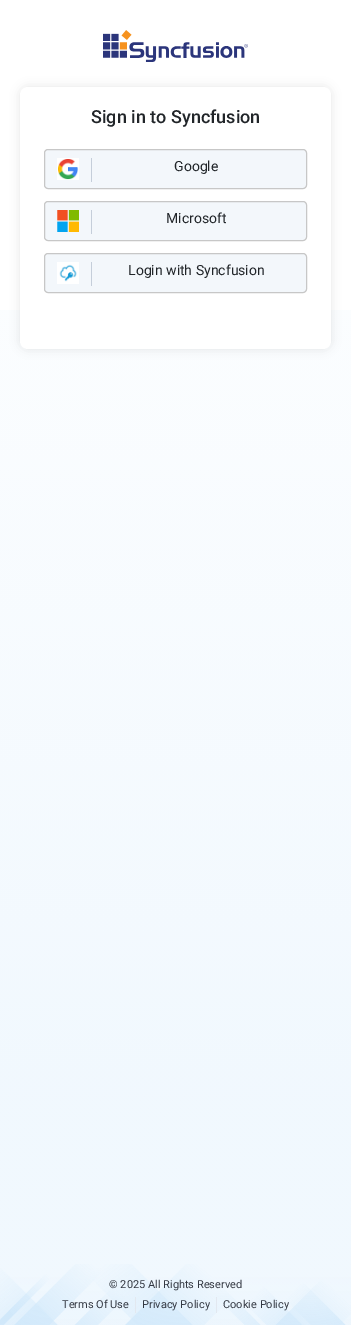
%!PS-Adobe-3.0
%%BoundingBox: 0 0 351 1325
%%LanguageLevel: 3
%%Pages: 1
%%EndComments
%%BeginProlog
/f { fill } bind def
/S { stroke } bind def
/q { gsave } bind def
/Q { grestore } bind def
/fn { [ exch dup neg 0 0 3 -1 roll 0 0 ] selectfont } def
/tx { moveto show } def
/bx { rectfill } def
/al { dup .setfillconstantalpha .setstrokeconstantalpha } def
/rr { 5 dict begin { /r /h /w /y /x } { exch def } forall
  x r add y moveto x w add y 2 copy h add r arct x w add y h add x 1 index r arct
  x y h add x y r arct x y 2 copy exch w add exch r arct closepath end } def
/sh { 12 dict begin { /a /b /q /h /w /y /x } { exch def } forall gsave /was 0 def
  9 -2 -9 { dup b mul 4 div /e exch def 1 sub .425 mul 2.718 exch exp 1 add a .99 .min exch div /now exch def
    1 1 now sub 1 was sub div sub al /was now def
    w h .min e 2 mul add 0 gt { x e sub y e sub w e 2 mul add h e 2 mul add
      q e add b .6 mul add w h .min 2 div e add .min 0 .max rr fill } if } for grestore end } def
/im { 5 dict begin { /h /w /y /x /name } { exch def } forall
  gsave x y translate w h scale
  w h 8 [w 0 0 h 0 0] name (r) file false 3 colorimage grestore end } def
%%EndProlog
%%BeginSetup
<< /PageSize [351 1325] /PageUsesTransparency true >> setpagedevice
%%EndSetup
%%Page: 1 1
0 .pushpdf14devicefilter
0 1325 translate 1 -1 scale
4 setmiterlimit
1 setgray
0 0 351 1325 bx
(image0.raw) 0 310 351 1015 im
(image1.raw) 103 30 145 32 im
0 setgray
20 87 311 262 8 5 0.1 sh
1 setgray
20 87 311 262 8 rr f
/Roboto-Medium 18 fn
0.129 0.145 0.161 setrgbcolor
(Sign in to Syncfusion) 91 123 tx
0.953 0.969 0.984 setrgbcolor
44.5 149.5 262 39 3.5 rr q f Q
0.78 setgray
S
(image2.raw) 57 158 22 22 im
0.773 0.808 0.855 setrgbcolor
91 158 1 24 bx
/Roboto-Regular 14 fn
0.129 0.145 0.161 setrgbcolor
(Google) 174 171 tx
0.953 0.969 0.984 setrgbcolor
44.5 201.5 262 39 3.5 rr q f Q
0.78 setgray
S
(image3.raw) 57 210 22 22 im
0.773 0.808 0.855 setrgbcolor
91 210 1 24 bx
0.129 0.145 0.161 setrgbcolor
(Microsoft) 166 223 tx
0.953 0.969 0.984 setrgbcolor
44.5 253.5 262 39 3.5 rr q f Q
0.78 setgray
S
(image4.raw) 57 262 22 22 im
0.773 0.808 0.855 setrgbcolor
91 262 1 24 bx
0.129 0.145 0.161 setrgbcolor
(Login with Syncfusion) 128 275 tx
/Roboto-Regular 11 fn
0.2 0.22 0.259 setrgbcolor
(© 2025 All Rights Reserved) 109 1288 tx
(Terms Of Use) 62 1308 tx
0.886 0.91 0.941 setrgbcolor
135 1297 1 16 bx
0.2 0.22 0.259 setrgbcolor
(Privacy Policy) 142 1308 tx
0.886 0.91 0.941 setrgbcolor
216 1297 1 16 bx
0.2 0.22 0.259 setrgbcolor
(Cookie Policy) 223 1308 tx
.poppdf14devicefilter showpage
%%EOF
